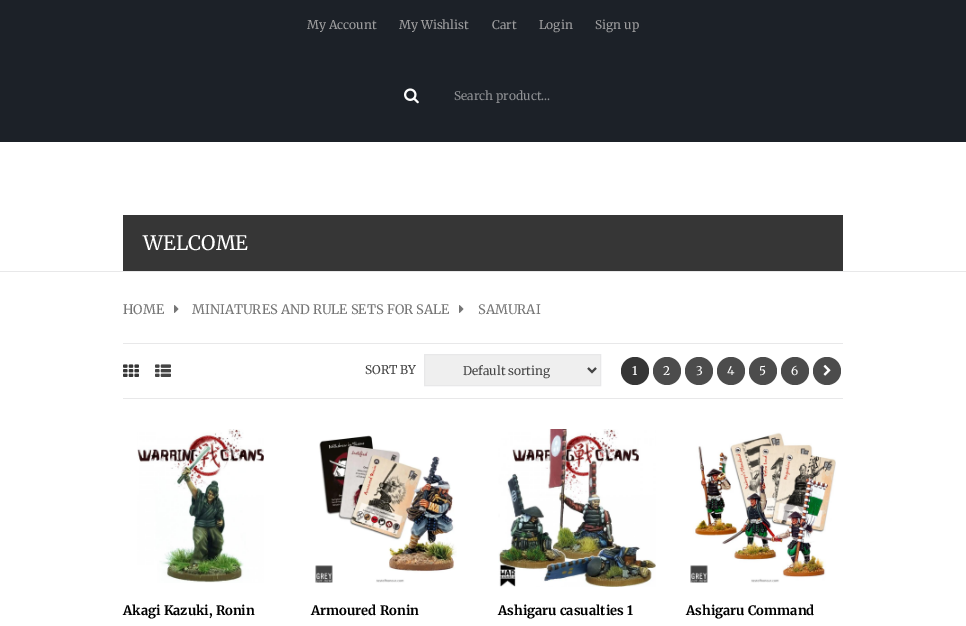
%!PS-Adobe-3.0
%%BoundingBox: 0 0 966 626
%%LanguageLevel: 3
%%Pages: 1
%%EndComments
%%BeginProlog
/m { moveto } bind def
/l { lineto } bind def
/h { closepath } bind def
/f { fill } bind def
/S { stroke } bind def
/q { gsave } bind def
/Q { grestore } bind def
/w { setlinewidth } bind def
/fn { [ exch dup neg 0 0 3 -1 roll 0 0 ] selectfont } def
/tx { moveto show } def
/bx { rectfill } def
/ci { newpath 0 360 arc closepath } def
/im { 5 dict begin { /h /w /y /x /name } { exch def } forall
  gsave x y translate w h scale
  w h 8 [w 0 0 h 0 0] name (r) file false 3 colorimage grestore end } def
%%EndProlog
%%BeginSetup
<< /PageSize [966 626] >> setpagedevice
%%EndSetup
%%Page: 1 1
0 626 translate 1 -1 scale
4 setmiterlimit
1 setgray
0 0 966 626 bx
0.11 0.129 0.157 setrgbcolor
0 0 966 142 bx
/Merriweather-Regular 12 fn
0.624 0.624 0.627 setrgbcolor
(My Account) 307 29 tx
(My Wishlist) 399 29 tx
(Cart) 492 29 tx
(Login) 539 29 tx
(Sign up) 595 29 tx
(image0.raw) 404 88 15 16 im
0.565 0.573 0.584 setrgbcolor
(Search product...) 454 100 tx
0.91 0.91 0.914 setrgbcolor
0 271 966 1 bx
0.212 setgray
123 215 720 56 bx
/Merriweather-Regular 20 fn
1 setgray
(WELCOME) 143 250 tx
/Merriweather-Regular 13 fn
0.463 setgray
(HOME) 123 314 tx
(image1.raw) 174 305 5 8 im
(MINIATURES AND RULE SETS FOR SALE) 192 314 tx
(image1.raw) 459 305 5 8 im
(SAMURAI) 478 314 tx
0.91 0.91 0.914 setrgbcolor
123 343 720 1 bx
123 398 720 1 bx
(image2.raw) 123 364 16 13 im
(image3.raw) 155 364 16 13 im
/Merriweather-Regular 12 fn
0.267 setgray
(SORT BY) 365 374 tx
0.937 setgray
424.5 354.5 m 600.5 354.5 l 600.5 385.5 l 424.5 385.5 l h q f Q
0.91 0.91 0.914 setrgbcolor
S
0.267 setgray
2 w
588 368 m 592 372 l 596 368 l S
(Default sorting) 463 375 tx
0.212 setgray
635 371 14 ci f
1 setgray
(1) 632 375 tx
0.298 setgray
667 371 14 ci f
1 setgray
(2) 663 375 tx
0.298 setgray
699 371 14 ci f
1 setgray
(3) 696 375 tx
0.298 setgray
731 371 14 ci f
1 setgray
(4) 727 375 tx
0.298 setgray
763 371 14 ci f
1 setgray
(5) 759 375 tx
0.298 setgray
795 371 14 ci f
1 setgray
(6) 791 375 tx
0.298 setgray
827 371 14 ci f
(image4.raw) 823 364 8 12 im
(image5.raw) 137 429 127 154 im
/Merriweather-Bold 13 fn
0 setgray
(Akagi Kazuki, Ronin) 123 615 tx
(image6.raw) 315 435 142 148 im
(Armoured Ronin) 311 615 tx
(image7.raw) 498 429 158 158 im
(Ashigaru casualties 1) 498 615 tx
(image8.raw) 690 432 146 151 im
(Ashigaru Command) 686 615 tx
showpage
%%EOF
